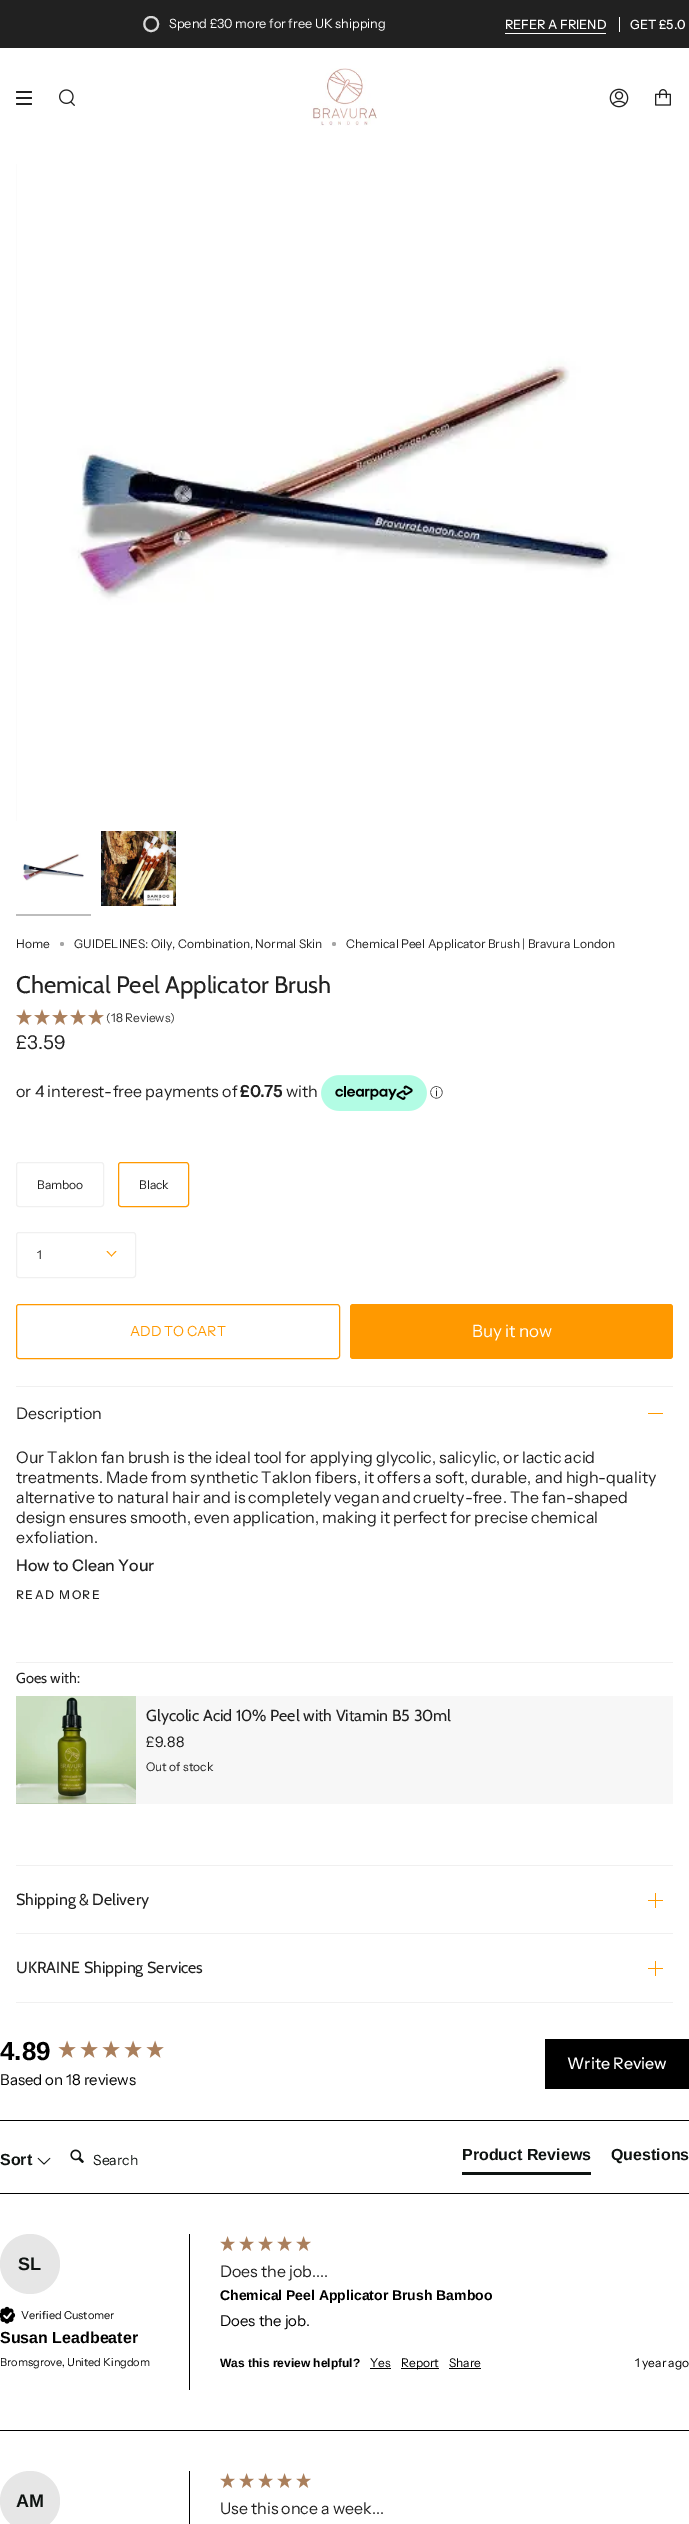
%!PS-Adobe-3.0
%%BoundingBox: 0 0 689 2524
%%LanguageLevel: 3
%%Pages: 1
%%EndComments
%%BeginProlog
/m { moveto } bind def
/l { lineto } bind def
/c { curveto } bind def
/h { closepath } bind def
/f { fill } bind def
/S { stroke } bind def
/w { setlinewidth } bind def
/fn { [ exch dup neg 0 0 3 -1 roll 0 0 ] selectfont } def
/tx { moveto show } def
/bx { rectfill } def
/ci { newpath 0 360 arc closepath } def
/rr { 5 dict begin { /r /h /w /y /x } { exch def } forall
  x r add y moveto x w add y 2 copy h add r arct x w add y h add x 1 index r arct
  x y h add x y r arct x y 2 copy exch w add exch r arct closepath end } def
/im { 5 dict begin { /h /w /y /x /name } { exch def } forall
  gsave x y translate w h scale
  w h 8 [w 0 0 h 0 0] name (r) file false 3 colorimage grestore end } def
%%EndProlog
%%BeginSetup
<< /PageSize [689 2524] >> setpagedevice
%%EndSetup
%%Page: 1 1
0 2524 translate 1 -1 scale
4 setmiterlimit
1 setgray
0 0 689 2524 bx
0.129 setgray
0 0 689 48 bx
0.847 setgray
2 w
151 17 m 142 17 142 31 151 31 c 160.5 31 160.5 17 151 17 c h S
/InstrumentSans-Regular 12.75 fn
1 setgray
(Spend £30 more for free UK shipping) 169 28 tx
/InstrumentSans-Medium 12.75 fn
(REFER A FRIEND) 505 29 tx
505 33 101 1 bx
(GET £5.0) 630 29 tx
619 17 1 15 bx
0.129 setgray
16 91 16 2 1 rr f
16 97 16 2 1 rr f
16 103 16 2 1 rr f
(image0.raw) 59 89 16 17 im
(image1.raw) 311 68 66 58 im
(image2.raw) 609 88 20 20 im
(image3.raw) 655 89 16 17 im
0.965 setgray
16 164 1 657 bx
(image4.raw) 16 164 657 657 im
(image5.raw) 22 853 62 28 im
0.741 setgray
16 914 75 2 bx
(image6.raw) 101 831 75 75 im
/InstrumentSans-Regular 12 fn
0.129 setgray
(Home) 16 948 tx
0.651 setgray
62 944 2 ci f
0.129 setgray
(GUIDELINES: Oily, Combination, Normal Skin) 74 948 tx
0.651 setgray
334 944 2 ci f
0.129 setgray
(Chemical Peel Applicator Brush | Bravura London) 346 948 tx
/Cabin-Regular 24 fn
(Chemical Peel Applicator Brush) 16 993 tx
(image7.raw) 16 1009 16 16 im
(image7.raw) 34 1009 16 16 im
(image7.raw) 52 1009 16 16 im
(image7.raw) 70 1009 16 16 im
(image7.raw) 88 1009 16 16 im
/InstrumentSans-Regular 12 fn
0.2 setgray
(\(18 Reviews\)) 106 1022 tx
/InstrumentSans-Regular 19 fn
0.129 setgray
(£3.59) 16 1049 tx
/InstrumentSans-Regular 16 fn
(or 4 interest-free payments of) 16 1097 tx
/InstrumentSans-Bold 16 fn
(£0.75) 240 1097 tx
/InstrumentSans-Regular 16 fn
(with) 286 1097 tx
(image8.raw) 321 1075 106 36 im
/WenQuanYiZenHei-Medium 13 fn
(ⓘ) 430 1097 tx
0.941 setgray
1 w
16.5 1162.5 87 44 2.5 rr S
/InstrumentSans-Regular 12 fn
0.129 setgray
(Bamboo) 37 1189 tx
1 0.6 0 setrgbcolor
118.5 1162.5 70 44 2.5 rr S
0.129 setgray
(Black) 139 1189 tx
0.941 setgray
16.5 1232.5 119 45 2.5 rr S
0.129 setgray
(1) 37 1259 tx
1 0.6 0 setrgbcolor
111 1256 m 115.5 1251 l 116.5 1251.5 l 111.5 1256.5 l h f
106.5 1251.5 m 107.5 1251 l 112 1256 l 111.5 1256.5 l h f
16.5 1304.5 323 54 2.5 rr S
/InstrumentSans-Regular 14 fn
(ADD TO CART) 130 1336 tx
350 1304 323 55 3 rr f
/InstrumentSans-Regular 17 fn
1 setgray
(Buy it now) 472 1337 tx
0.941 setgray
16 1662 657 1 bx
16 1386 657 1 bx
/InstrumentSans-Regular 16 fn
0.129 setgray
(Description) 16 1419 tx
1 0.6 0 setrgbcolor
648 1413 15 1 bx
0.129 setgray
(Our Taklon fan brush is the ideal tool for applying glycolic, salicylic, or lactic acid) 16 1463 tx
(treatments. Made from synthetic Taklon fibers, it offers a soft, durable, and high-quality) 16 1483 tx
(alternative to natural hair and is completely vegan and cruelty-free. The fan-shaped) 16 1503 tx
(design ensures smooth, even application, making it perfect for precise chemical) 16 1523 tx
(exfoliation.) 16 1543 tx
/InstrumentSans-Medium 16 fn
(How to Clean Your) 16 1571 tx
/InstrumentSans-Medium 12 fn
16 1599 m 1.5 0 (READ MORE) ashow
/Cabin-Regular 14.5 fn
(Goes with:) 16 1683 tx
0.969 setgray
136 1696 537 108 bx
(image9.raw) 16 1696 120 108 im
/Cabin-Regular 16 fn
0.129 setgray
(Glycolic Acid 10% Peel with Vitamin B5 30ml) 146 1721 tx
/InstrumentSans-Regular 14.5 fn
(£9.88) 146 1747 tx
/InstrumentSans-Regular 12 fn
(Out of stock) 146 1771 tx
0.941 setgray
16 1865 657 1 bx
16 1933 657 1 bx
/Cabin-Regular 16 fn
0.129 setgray
(Shipping & Delivery) 16 1905 tx
1 0.6 0 setrgbcolor
648 1900 15 1 bx
655 1893 1 15 bx
0.941 setgray
16 2002 657 1 bx
0.129 setgray
(UKRAINE Shipping Services) 16 1973 tx
1 0.6 0 setrgbcolor
648 1968 15 1 bx
655 1961 1 15 bx
0 setgray
0 2120 689 1 bx
/LiberationSans-Bold 26 fn
(4.89) 0 2060 tx
(image10.raw) 58 2040 18 18 im
(image10.raw) 80 2040 18 18 im
(image10.raw) 102 2040 18 18 im
(image10.raw) 124 2040 18 18 im
(image10.raw) 146 2040 18 18 im
/InstrumentSans-Regular 15 fn
(Based on 18 reviews) 0 2085 tx
545 2039 144 50 bx
/InstrumentSans-Medium 16 fn
1 setgray
(Write Review) 567 2069 tx
0 setgray
0 2193 689 1 bx
/LiberationSans-Bold 16 fn
0.055 0.075 0.067 setrgbcolor
(Sort) 0 2165 tx
(image11.raw) 37 2157 14 8 im
(image12.raw) 70 2149 14 14 im
/InstrumentSans-Regular 14 fn
(Search) 93 2165 tx
462 2172 129 3 bx
/LiberationSans-Bold 16 fn
(Product Reviews) 462 2160 tx
(Questions) 611 2160 tx
0 setgray
0 2430 689 1 bx
189 2234 1 156 bx
0.902 setgray
30 2264 30 ci f
/LiberationSans-Bold 18 fn
0.055 0.075 0.067 setrgbcolor
(SL) 18 2270 tx
(image13.raw) 0 2306 16 18 im
/InstrumentSans-Regular 11 fn
0 setgray
(Verified Customer) 21 2319 tx
/LiberationSans-Bold 16 fn
(Susan Leadbeater) 0 2343 tx
/InstrumentSans-Regular 11 fn
(Bromsgrove, United Kingdom) 0 2366 tx
(image14.raw) 220 2236 15 15 im
(image14.raw) 239 2236 15 15 im
(image14.raw) 258 2236 15 15 im
(image14.raw) 277 2236 15 15 im
(image14.raw) 296 2236 15 15 im
/InstrumentSans-Regular 16 fn
0.129 setgray
(Does the job....) 220 2277 tx
/LiberationSans-Bold 14 fn
0 setgray
(Chemical Peel Applicator Brush Bamboo) 220 2300 tx
/InstrumentSans-Regular 15 fn
(Does the job.) 220 2326 tx
/LiberationSans-Bold 12 fn
(Was this review helpful?) 220 2367 tx
/InstrumentSans-Regular 12 fn
(Yes) 370 2367 tx
370 2368 21 1 bx
401 2368 38 1 bx
(Report) 401 2367 tx
(Share) 449 2367 tx
449 2368 32 1 bx
(1 year ago) 635 2367 tx
189 2471 1 53 bx
0.902 setgray
30 2501 30 ci f
/LiberationSans-Bold 18 fn
0.055 0.075 0.067 setrgbcolor
(AM) 16 2507 tx
(image14.raw) 220 2473 15 15 im
(image14.raw) 239 2473 15 15 im
(image14.raw) 258 2473 15 15 im
(image14.raw) 277 2473 15 15 im
(image14.raw) 296 2473 15 15 im
/InstrumentSans-Regular 16 fn
0.129 setgray
(Use this once a week...) 220 2514 tx
showpage
%%EOF
